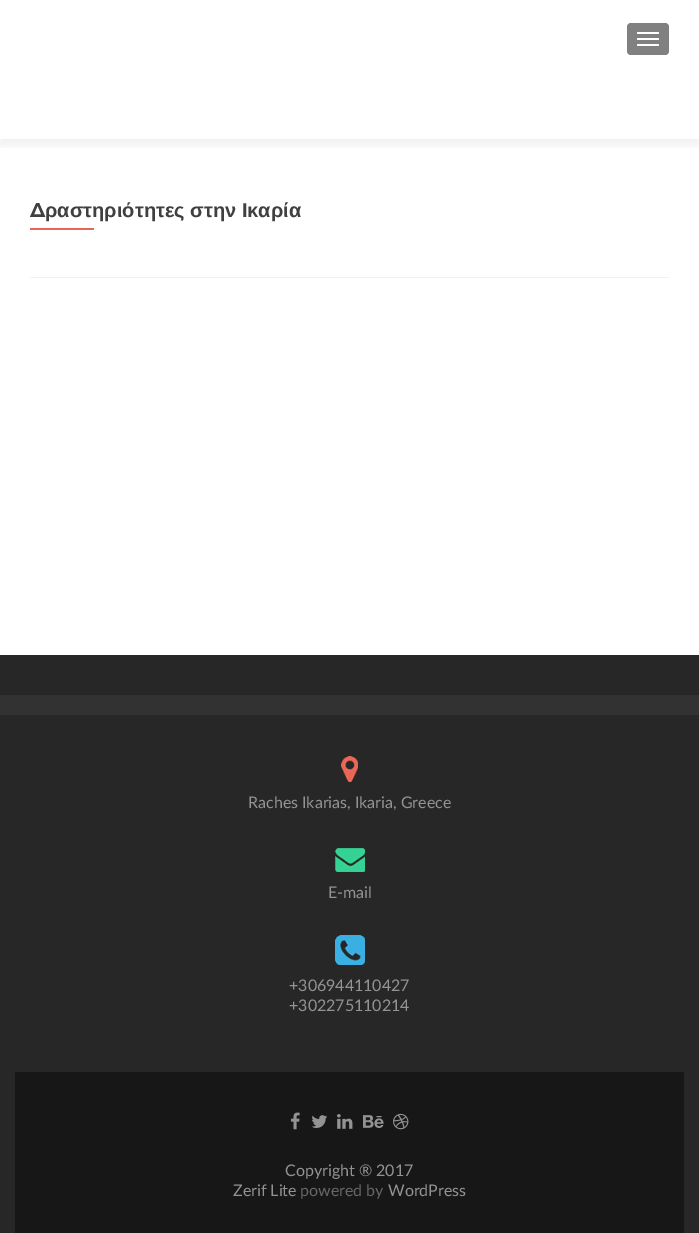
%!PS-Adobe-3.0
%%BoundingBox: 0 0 699 1233
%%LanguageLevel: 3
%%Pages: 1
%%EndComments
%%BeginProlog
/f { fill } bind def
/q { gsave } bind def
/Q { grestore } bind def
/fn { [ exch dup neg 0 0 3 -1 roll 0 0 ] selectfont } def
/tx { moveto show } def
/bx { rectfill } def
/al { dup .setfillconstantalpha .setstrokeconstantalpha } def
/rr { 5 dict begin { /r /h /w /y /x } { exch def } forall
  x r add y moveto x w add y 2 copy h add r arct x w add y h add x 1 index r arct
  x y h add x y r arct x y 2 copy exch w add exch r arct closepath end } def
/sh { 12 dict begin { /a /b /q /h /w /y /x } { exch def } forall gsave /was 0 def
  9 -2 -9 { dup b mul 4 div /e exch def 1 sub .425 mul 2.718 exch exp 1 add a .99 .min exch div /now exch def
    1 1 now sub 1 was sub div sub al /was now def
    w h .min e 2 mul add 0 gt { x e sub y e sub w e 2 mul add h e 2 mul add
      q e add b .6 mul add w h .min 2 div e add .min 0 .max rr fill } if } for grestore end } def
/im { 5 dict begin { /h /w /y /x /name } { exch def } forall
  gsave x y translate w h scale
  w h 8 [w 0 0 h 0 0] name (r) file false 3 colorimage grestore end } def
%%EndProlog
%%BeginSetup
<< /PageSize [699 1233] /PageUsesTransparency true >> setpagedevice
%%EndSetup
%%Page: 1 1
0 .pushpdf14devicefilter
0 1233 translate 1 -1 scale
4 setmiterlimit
1 setgray
0 0 699 1233 bx
q
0 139 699 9 rectclip
0.196 setgray
0 5 699 139 0 5.5 0.08 sh
Q
0.502 setgray
627 23 42 32 4 rr f
1 setgray
637 32 22 2 1 rr f
637 38 22 2 1 rr f
637 44 22 2 1 rr f
0.949 setgray
30 277 639 1 bx
/Montserrat-Bold 20 fn
0.251 setgray
(Δ) 30 217 tx
/LiberationSans-Bold 20 fn
(ραστηριότητες στην Ικαρία) 45 217 tx
0.914 0.4 0.337 setrgbcolor
30 228 64 2 bx
0.153 setgray
0 655 699 578 bx
0.196 setgray
0 695 699 20 bx
(image0.raw) 341 756 17 26 im
/Lato-Regular 16 fn
0.576 setgray
(Raches Ikarias, Ikaria, Greece) 248 808 tx
(image1.raw) 335 848 30 24 im
(E-mail) 328 898 tx
(image2.raw) 335 935 30 30 im
(+306944110427) 289 991 tx
(+302275110214) 289 1011 tx
0.09 setgray
15 1072 669 161 bx
(image3.raw) 290 1112 10 18 im
(image4.raw) 311 1115 17 13 im
(image5.raw) 337 1114 16 15 im
(image6.raw) 363 1115 21 13 im
(image7.raw) 393 1113 16 17 im
0.576 setgray
(Copyright ® 2017) 285 1176 tx
(Zerif Lite) 233 1196 tx
0.4 setgray
(powered by) 300 1196 tx
0.576 setgray
(WordPress) 388 1196 tx
.poppdf14devicefilter showpage
%%EOF
